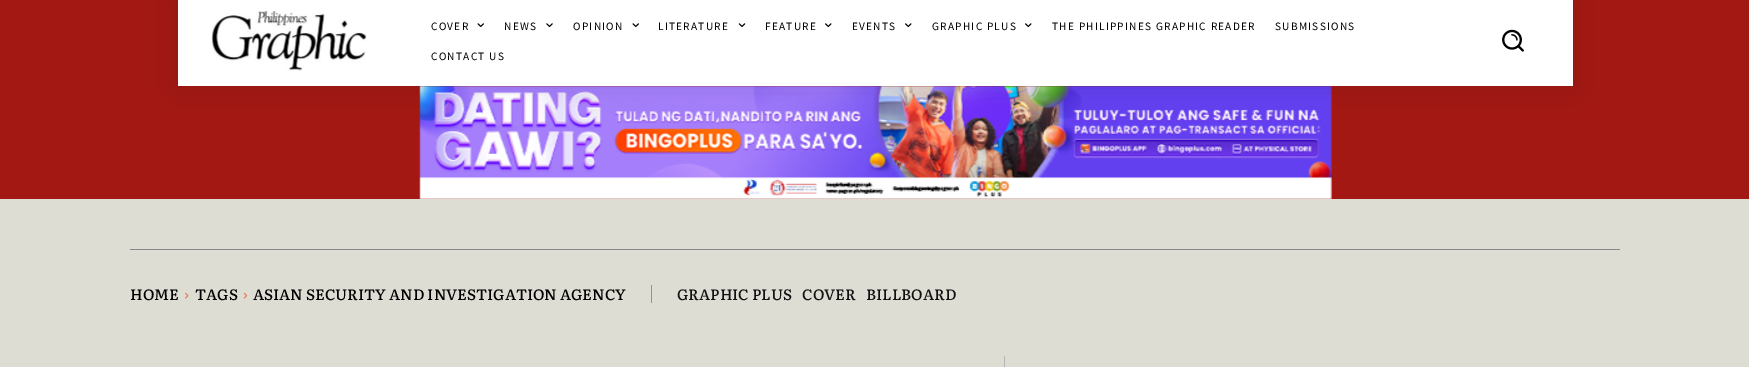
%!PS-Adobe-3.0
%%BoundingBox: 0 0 1749 367
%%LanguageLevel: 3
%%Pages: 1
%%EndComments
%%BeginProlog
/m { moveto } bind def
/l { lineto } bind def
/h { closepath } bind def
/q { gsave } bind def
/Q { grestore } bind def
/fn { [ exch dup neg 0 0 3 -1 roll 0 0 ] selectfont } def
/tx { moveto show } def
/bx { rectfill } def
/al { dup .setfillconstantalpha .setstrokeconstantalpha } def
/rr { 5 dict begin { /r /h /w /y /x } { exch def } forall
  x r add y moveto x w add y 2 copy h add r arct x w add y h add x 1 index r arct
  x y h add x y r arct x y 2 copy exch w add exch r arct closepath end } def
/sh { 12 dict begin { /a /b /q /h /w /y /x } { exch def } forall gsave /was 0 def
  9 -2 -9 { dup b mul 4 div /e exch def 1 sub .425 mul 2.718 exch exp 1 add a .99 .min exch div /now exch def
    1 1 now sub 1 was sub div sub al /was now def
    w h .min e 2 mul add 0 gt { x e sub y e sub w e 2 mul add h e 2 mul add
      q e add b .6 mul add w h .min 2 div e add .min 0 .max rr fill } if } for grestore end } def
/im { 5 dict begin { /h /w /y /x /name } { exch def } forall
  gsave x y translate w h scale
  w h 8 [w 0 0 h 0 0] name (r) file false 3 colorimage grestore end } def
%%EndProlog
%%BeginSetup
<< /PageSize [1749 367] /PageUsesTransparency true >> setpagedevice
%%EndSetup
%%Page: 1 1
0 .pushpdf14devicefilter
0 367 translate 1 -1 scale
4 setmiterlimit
0.867 0.867 0.831 setrgbcolor
0 0 1749 367 bx
0.639 0.094 0.075 setrgbcolor
0 0 1749 199 bx
1 setgray
178 0 1395 86 bx
(image0.raw) 211 11 156 60 im
(image6.raw) 419 86 913 113 im
q
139 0 m 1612 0 l 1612 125 l 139 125 l h 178 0 m 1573 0 l 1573 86 l 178 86 l h eoclip newpath
0 setgray
178 0 1395 86 0 12.5 0.1 sh
Q
/SourceSansPro-Regular 11.25 fn
0 setgray
431 30 m 1.25 0 (COVER) ashow
(image1.raw) 477 23 7 4 im
504 30 m 1.25 0 (NEWS) ashow
(image2.raw) 546 23 7 4 im
573 30 m 1.25 0 (OPINION) ashow
(image1.raw) 632 23 7 4 im
658 30 m 1.25 0 (LITERATURE) ashow
(image3.raw) 738 23 8 4 im
765 30 m 1.25 0 (FEATURE) ashow
(image4.raw) 825 23 7 4 im
852 30 m 1.25 0 (EVENTS) ashow
(image4.raw) 905 23 7 4 im
932 30 m 1.25 0 (GRAPHIC PLUS) ashow
(image4.raw) 1025 23 7 4 im
1052 30 m 1.25 0 (THE PHILIPPINES GRAPHIC READER) ashow
1275 30 m 1.25 0 (SUBMISSIONS) ashow
431 60 m 1.25 0 (CONTACT US) ashow
(image5.raw) 1502 29 22 23 im
0.533 setgray
130 249 1490 1 bx
0.898 0.463 0.306 setrgbcolor
651 285 1 18 bx
/Literata-Medium 15 fn
0 setgray
(HOME) 130 300 tx
(image7.raw) 185 292 4 7 im
(TAGS) 195 300 tx
(image8.raw) 243 292 5 7 im
(ASIAN SECURITY AND INVESTIGATION AGENCY) 253 300 tx
0.067 setgray
(GRAPHIC PLUS) 677 300 tx
(COVER) 802 300 tx
(BILLBOARD) 866 300 tx
0.71 setgray
1004 356 1 11 bx
.poppdf14devicefilter showpage
%%EOF
